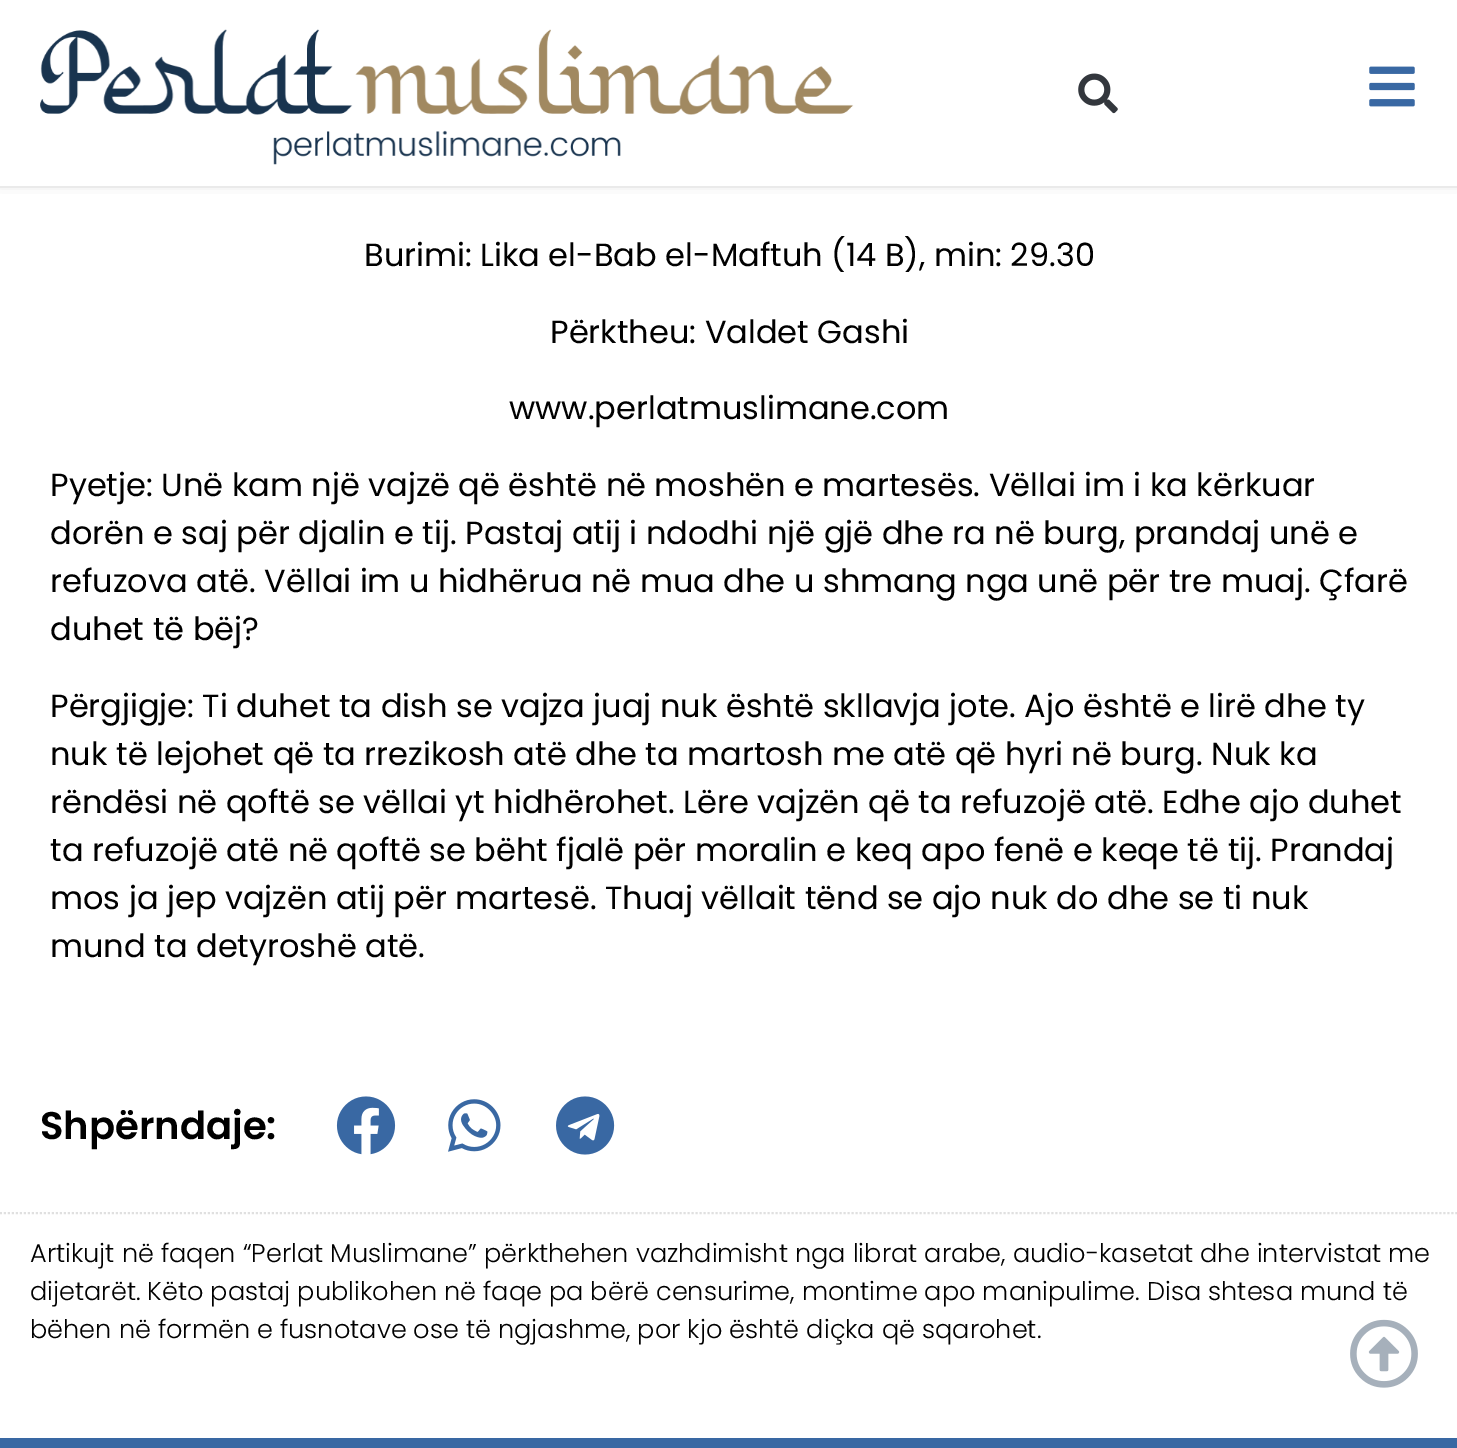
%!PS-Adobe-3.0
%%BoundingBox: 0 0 1457 1448
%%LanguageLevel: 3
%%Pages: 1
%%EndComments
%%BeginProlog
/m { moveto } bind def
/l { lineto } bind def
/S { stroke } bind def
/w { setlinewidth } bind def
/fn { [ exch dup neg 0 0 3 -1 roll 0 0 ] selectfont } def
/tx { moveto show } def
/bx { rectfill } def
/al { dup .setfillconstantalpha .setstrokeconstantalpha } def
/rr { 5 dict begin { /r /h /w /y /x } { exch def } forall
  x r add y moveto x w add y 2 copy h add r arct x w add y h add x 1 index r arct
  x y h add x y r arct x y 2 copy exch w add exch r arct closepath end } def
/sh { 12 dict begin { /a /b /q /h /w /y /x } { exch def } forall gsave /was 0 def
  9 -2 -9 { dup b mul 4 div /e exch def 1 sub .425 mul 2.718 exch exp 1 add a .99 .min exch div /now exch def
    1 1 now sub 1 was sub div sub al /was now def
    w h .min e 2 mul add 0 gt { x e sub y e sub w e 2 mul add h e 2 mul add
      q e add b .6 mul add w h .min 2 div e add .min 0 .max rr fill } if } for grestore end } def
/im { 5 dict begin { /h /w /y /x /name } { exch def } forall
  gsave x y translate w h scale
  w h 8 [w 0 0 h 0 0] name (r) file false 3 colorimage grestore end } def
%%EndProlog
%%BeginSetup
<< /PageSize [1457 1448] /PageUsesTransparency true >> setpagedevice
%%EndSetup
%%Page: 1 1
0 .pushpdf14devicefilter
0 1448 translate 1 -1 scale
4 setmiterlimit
1 setgray
0 0 1457 1448 bx
0 setgray
0 -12 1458 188 0 8 0.5 sh
1 setgray
0 0 1457 186 bx
0.918 setgray
0 186 1457 2 bx
(image0.raw) 40 29 814 136 im
(image1.raw) 1078 73 40 41 im
(image2.raw) 1369 66 46 41 im
/Poppins-Regular 32 fn
0 setgray
(Burimi: Lika el-Bab el-Maftuh \(14 B\), min: 29.30) 364 266 tx
(Përktheu: Valdet Gashi) 550 343 tx
(www.perlatmuslimane.com) 509 419 tx
(Pyetje: Unë kam një vajzë që është në moshën e martesës. Vëllai im i ka kërkuar) 50 496 tx
(dorën e saj për djalin e tij. Pastaj atij i ndodhi një gjë dhe ra në burg, prandaj unë e) 50 544 tx
(refuzova atë. Vëllai im u hidhërua në mua dhe u shmang nga unë për tre muaj. Çfarë) 50 592 tx
(duhet të bëj?) 50 640 tx
(Përgjigje: Ti duhet ta dish se vajza juaj nuk është skllavja jote. Ajo është e lirë dhe ty) 50 717 tx
(nuk të lejohet që ta rrezikosh atë dhe ta martosh me atë që hyri në burg. Nuk ka) 50 765 tx
(rëndësi në qoftë se vëllai yt hidhërohet. Lëre vajzën që ta refuzojë atë. Edhe ajo duhet) 50 813 tx
(ta refuzojë atë në qoftë se bëht fjalë për moralin e keq apo fenë e keqe të tij. Prandaj) 50 861 tx
(mos ja jep vajzën atij për martesë. Thuaj vëllait tënd se ajo nuk do dhe se ti nuk) 50 909 tx
(mund ta detyroshë atë.) 50 957 tx
/Poppins-SemiBold 38.5 fn
(Shpërndaje:) 40 1139 tx
(image3.raw) 336 1096 60 59 im
(image4.raw) 448 1099 53 53 im
(image5.raw) 556 1096 59 59 im
0.878 setgray
2 w
[2 2] 0 setdash
0 1213 m 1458 1213 l S
/Poppins-Light 25.6 fn
0 setgray
(Artikujt në faqen “Perlat Muslimane” përkthehen vazhdimisht nga librat arabe, audio-kasetat dhe intervistat me) 30 1262 tx
(dijetarët. Këto pastaj publikohen në faqe pa bërë censurime, montime apo manipulime. Disa shtesa mund të) 30 1300 tx
(bëhen në formën e fusnotave ose të ngjashme, por kjo është diçka që sqarohet.) 30 1338 tx
(image6.raw) 1350 1319 68 69 im
0.224 0.408 0.639 setrgbcolor
0 1438 1457 10 bx
.poppdf14devicefilter showpage
%%EOF
